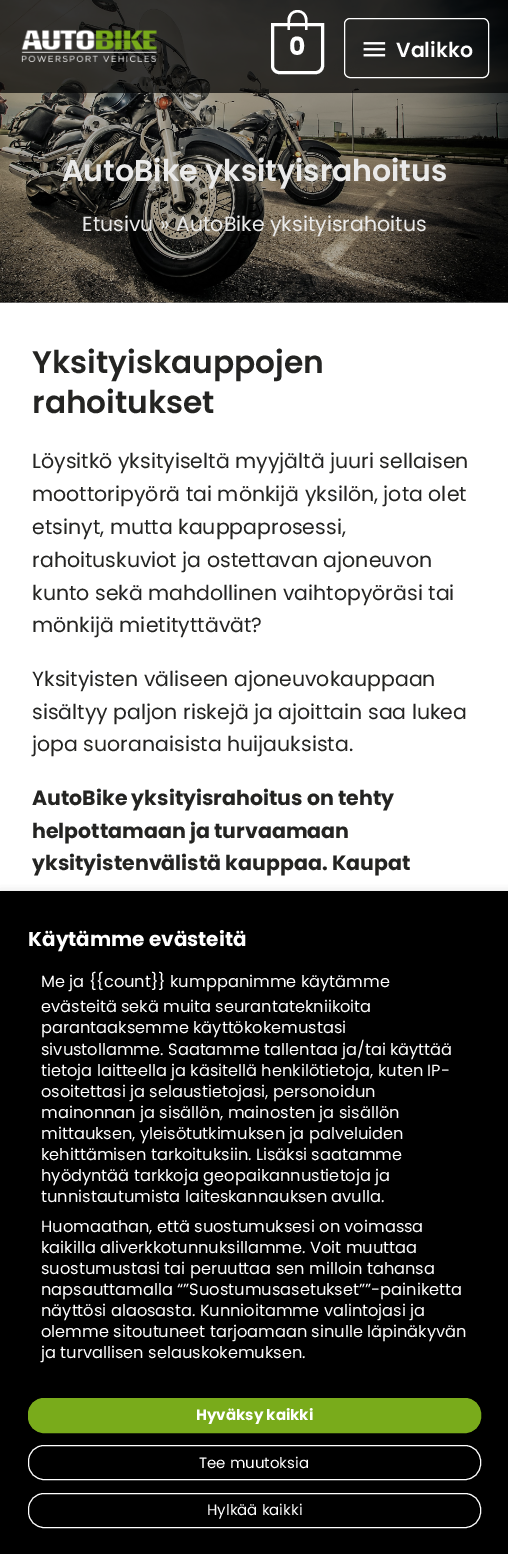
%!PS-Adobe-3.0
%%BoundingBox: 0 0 508 1554
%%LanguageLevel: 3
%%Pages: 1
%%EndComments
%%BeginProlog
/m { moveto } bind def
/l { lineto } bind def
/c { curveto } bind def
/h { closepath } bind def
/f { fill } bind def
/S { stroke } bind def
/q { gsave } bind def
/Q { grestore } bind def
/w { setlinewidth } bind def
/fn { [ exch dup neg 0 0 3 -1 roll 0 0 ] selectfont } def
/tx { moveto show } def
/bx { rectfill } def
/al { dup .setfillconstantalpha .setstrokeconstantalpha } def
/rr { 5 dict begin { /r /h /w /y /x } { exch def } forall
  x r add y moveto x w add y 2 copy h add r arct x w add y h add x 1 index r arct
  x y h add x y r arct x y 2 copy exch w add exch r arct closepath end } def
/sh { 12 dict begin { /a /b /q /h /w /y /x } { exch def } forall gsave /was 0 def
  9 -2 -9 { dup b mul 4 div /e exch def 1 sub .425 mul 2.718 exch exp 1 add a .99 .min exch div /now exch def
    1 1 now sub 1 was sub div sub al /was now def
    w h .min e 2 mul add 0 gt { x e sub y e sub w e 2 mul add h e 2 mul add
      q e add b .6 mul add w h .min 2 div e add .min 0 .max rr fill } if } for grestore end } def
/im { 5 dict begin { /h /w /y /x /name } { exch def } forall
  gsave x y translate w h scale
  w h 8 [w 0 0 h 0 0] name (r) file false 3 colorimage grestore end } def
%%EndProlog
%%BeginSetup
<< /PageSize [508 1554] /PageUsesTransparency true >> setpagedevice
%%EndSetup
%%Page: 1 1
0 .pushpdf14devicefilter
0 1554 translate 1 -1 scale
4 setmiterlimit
1 setgray
0 0 508 1554 bx
0.643 setgray
0 302 508 1 bx
(image0.raw) 0 0 508 303 im
0.7 al
0 setgray
0 0 508 93 bx
1 al
(image1.raw) 21 29 136 34 im
1 setgray
3 w
272.5 24.5 m 322.5 24.5 l 322.5 66 l 322.5 69.5 319.5 72.5 316 72.5 c 279 72.5 l 275.5 72.5 272.5 69.5 272.5 66 c h S
297.5 10 m 303 10 307.5 14.5 307.5 20 c 307.5 30 l 287.5 30 l 287.5 20 l 287.5 14.5 292 10 297.5 10 c h 297.5 12.5 m 307 12.5 305 24 305 30 c 290 30 l 290 24 288.5 12.5 297.5 12.5 c h eofill
/Poppins-Bold 25 fn
(0) 289 55 tx
1 w
344.5 18.5 144 59 5.5 rr S
(image2.raw) 363 42 23 15 im
/Poppins-SemiBold 20.5 fn
(Valikko) 396 57 tx
/Poppins-SemiBold 30 fn
0.918 setgray
(AutoBike yksityisrahoitus) 62 181 tx
/Poppins-Regular 20.5 fn
(Etusivu) 82 231 tx
(») 160 231 tx
(AutoBike yksityisrahoitus) 176 231 tx
/Poppins-SemiBold 31.25 fn
0.141 0.141 0.133 setrgbcolor
(Yksityiskauppojen) 32 373 tx
(rahoitukset) 32 413 tx
/Poppins-Regular 20.5 fn
(Löysitkö yksityiseltä myyjältä juuri sellaisen) 32 468 tx
(moottoripyörä tai mönkijä yksilön, jota olet) 32 501 tx
(etsinyt, mutta kauppaprosessi,) 32 534 tx
(rahoituskuviot ja ostettavan ajoneuvon) 32 567 tx
(kunto sekä mahdollinen vaihtopyöräsi tai) 32 600 tx
(mönkijä mietityttävät?) 32 632 tx
(Yksityisten väliseen ajoneuvokauppaan) 32 686 tx
(sisältyy paljon riskejä ja ajoittain saa lukea) 32 719 tx
(jopa suoranaisista huijauksista.) 32 751 tx
/Poppins-Bold 20.5 fn
(AutoBike yksityisrahoitus on tehty) 32 805 tx
(helpottamaan ja turvaamaan) 32 838 tx
(yksityistenvälistä kauppaa. Kaupat) 32 870 tx
0 setgray
0 898 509 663 0 6 0.5 sh
0 891 508 663 bx
/Poppins-Bold 20 fn
1 setgray
(Käytämme evästeitä) 28 946 tx
/Poppins-Regular 16.25 fn
(Me ja {{count}} kumppanimme käytämme) 41 987 tx
(evästeitä sekä muita seurantatekniikoita) 41 1012 tx
(parantaaksemme käyttökokemustasi) 41 1033 tx
(sivustollamme. Saatamme tallentaa ja/tai käyttää) 41 1055 tx
(tietoja laitteella ja käsitellä henkilötietoja, kuten IP-) 41 1076 tx
(osoitettasi ja selaustietojasi, personoidun) 41 1097 tx
(mainonnan ja sisällön, mainosten ja sisällön) 41 1118 tx
(mittauksen, yleisötutkimuksen ja palveluiden) 41 1139 tx
(kehittämisen tarkoituksiin. Lisäksi saatamme) 41 1160 tx
(hyödyntää tarkkoja geopaikannustietoja ja) 41 1181 tx
(tunnistautumista laiteskannauksen avulla.) 41 1202 tx
(Huomaathan, että suostumuksesi on voimassa) 41 1232 tx
(kaikilla aliverkkotunnuksillamme. Voit muuttaa) 41 1253 tx
(suostumustasi tai peruuttaa sen milloin tahansa) 41 1274 tx
(napsauttamalla “”Suostumusasetukset””-painiketta) 41 1295 tx
(näyttösi alaosasta. Kunnioitamme valintojasi ja) 41 1316 tx
(olemme sitoutuneet tarjoamaan sinulle läpinäkyvän) 41 1337 tx
(ja turvallisen selauskokemuksen.) 41 1358 tx
0.475 0.671 0.106 setrgbcolor
28.5 1398.5 452 34 15.5 rr q f Q
S
/Poppins-Bold 15 fn
1 setgray
(Hyväksy kaikki) 196 1420 tx
28.5 1445.5 452 34 15.5 rr S
/Poppins-Regular 15 fn
(Tee muutoksia) 199 1468 tx
28.5 1493.5 452 34 15.5 rr S
(Hylkää kaikki) 207 1515 tx
.poppdf14devicefilter showpage
%%EOF
